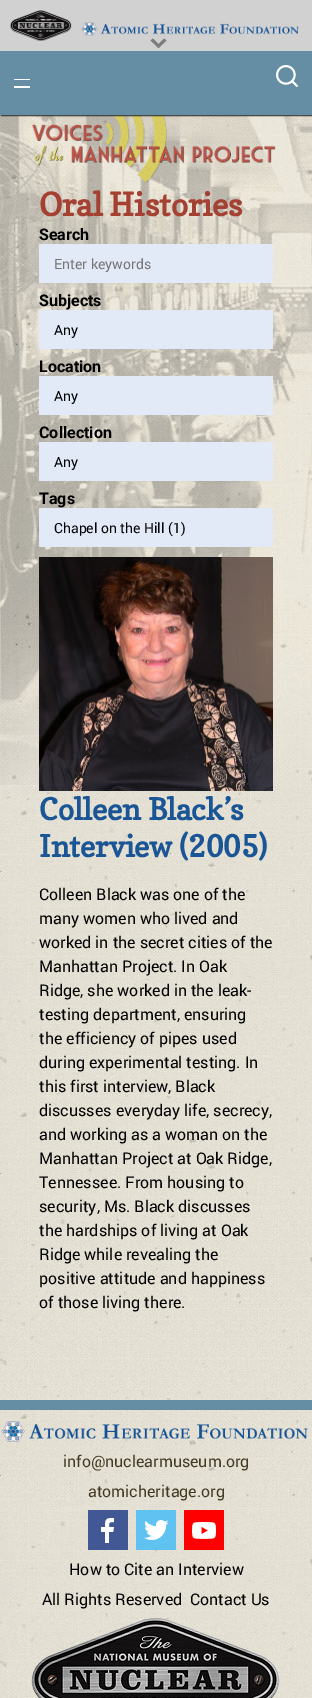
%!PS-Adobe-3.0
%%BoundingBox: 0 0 312 1698
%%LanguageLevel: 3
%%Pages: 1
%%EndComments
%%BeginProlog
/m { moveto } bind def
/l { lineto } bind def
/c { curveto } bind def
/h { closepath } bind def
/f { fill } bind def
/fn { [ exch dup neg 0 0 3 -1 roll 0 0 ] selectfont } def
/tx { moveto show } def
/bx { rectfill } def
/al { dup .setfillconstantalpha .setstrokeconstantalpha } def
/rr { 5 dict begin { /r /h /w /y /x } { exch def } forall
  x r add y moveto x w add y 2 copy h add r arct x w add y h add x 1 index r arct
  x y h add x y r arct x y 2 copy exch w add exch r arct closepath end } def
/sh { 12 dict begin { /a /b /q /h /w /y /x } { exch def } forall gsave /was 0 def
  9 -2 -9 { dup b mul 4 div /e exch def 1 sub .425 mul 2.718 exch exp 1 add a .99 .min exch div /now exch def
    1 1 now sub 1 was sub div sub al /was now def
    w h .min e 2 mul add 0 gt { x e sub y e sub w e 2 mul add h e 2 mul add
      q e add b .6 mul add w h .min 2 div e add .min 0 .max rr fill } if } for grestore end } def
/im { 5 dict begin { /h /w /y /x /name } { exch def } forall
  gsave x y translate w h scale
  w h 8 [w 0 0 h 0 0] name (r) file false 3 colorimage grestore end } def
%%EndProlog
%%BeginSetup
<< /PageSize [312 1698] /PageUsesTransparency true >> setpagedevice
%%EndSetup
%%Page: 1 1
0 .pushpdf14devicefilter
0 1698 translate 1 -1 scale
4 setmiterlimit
1 setgray
0 0 312 1698 bx
(image0.raw) 0 800 312 898 im
(image1.raw) 0 115 312 685 im
(image5.raw) 32 115 244 68 im
0.2 setgray
1 52 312 64 0 0.5 1 sh
0.82 setgray
0 0 312 51 bx
(image2.raw) 10 10 62 31 im
(image3.raw) 81 22 218 14 im
0.49 setgray
164 38.5 m 166.5 40.5 l 158.5 48 l 156.5 46 l h f
153 38.5 m 160.5 46 l 158.5 48 l 150.5 40.5 l h f
0.396 0.553 0.639 setrgbcolor
0 51 312 64 bx
1 setgray
14 79 16 1 bx
14 86 16 2 bx
(image4.raw) 276 65 22 22 im
/Copse-Bold 32 fn
0.643 0.255 0.2 setrgbcolor
(Oral Histories) 39 216 tx
/Roboto-Bold 16 fn
0 setgray
(Search) 39 240 tx
0.886 0.914 0.969 setrgbcolor
39 244 234 39 bx
/roboto-Regular 14 fn
0.459 setgray
(Enter keywords) 54 269 tx
/Roboto-Bold 16 fn
0 setgray
(Subjects) 39 306 tx
0.886 0.914 0.969 setrgbcolor
39 310 234 39 bx
/roboto-Regular 14 fn
0 setgray
(Any) 54 335 tx
/Roboto-Bold 16 fn
(Location) 39 372 tx
0.886 0.914 0.969 setrgbcolor
39 376 234 39 bx
/roboto-Regular 14 fn
0 setgray
(Any) 54 401 tx
/Roboto-Bold 16 fn
(Collection) 39 438 tx
0.886 0.914 0.969 setrgbcolor
39 442 234 39 bx
/roboto-Regular 14 fn
0 setgray
(Any) 54 467 tx
/Roboto-Bold 16 fn
(Tags) 39 504 tx
0.886 0.914 0.969 setrgbcolor
39 508 234 39 bx
/roboto-Regular 14 fn
0 setgray
(Chapel on the Hill \(1\)) 54 533 tx
(image6.raw) 39 557 234 234 im
/Copse-Bold 30 fn
0.102 0.333 0.584 setrgbcolor
(Colleen Black’s) 39 820 tx
(Interview \(2005\)) 39 857 tx
/roboto-Regular 16 fn
0 setgray
(Colleen Black was one of the) 39 900 tx
(many women who lived and) 39 924 tx
(worked in the secret cities of the) 39 948 tx
(Manhattan Project. In Oak) 39 972 tx
(Ridge, she worked in the leak-) 39 996 tx
(testing department, ensuring) 39 1020 tx
(the efficiency of pipes used) 39 1044 tx
(during experimental testing. In) 39 1068 tx
(this first interview, Black) 39 1092 tx
(discusses everyday life, secrecy,) 39 1116 tx
(and working as a woman on the) 39 1140 tx
(Manhattan Project at Oak Ridge,) 39 1164 tx
(Tennessee. From housing to) 39 1188 tx
(security, Ms. Black discusses) 39 1212 tx
(the hardships of living at Oak) 39 1236 tx
(Ridge while revealing the) 39 1260 tx
(positive attitude and happiness) 39 1284 tx
(of those living there.) 39 1308 tx
0.396 0.553 0.639 setrgbcolor
0 1400 312 10 bx
(image7.raw) 1 1421 307 21 im
0.263 0.227 0.137 setrgbcolor
(info@nuclearmuseum.org) 63 1467 tx
(atomicheritage.org) 88 1497 tx
0.259 0.345 0.58 setrgbcolor
88 1510 40 40 bx
1 setgray
105 1543 m 105 1532 l 101 1532 l 101 1527 l 105 1527 l 105 1519 106 1518 114 1518 c 114 1522 l 109 1522 109 1522 109 1527 c 114 1527 l 113 1532 l 109 1532 l 109 1543 l 138 1543 79 1543 105 1543 c h eofill
(image8.raw) 136 1510 40 40 im
(image9.raw) 184 1510 40 40 im
0 setgray
(How to Cite an Interview) 69 1575 tx
(All Rights Reserved) 42 1605 tx
(Contact Us) 190 1605 tx
(image10.raw) 31 1618 249 80 im
.poppdf14devicefilter showpage
%%EOF
